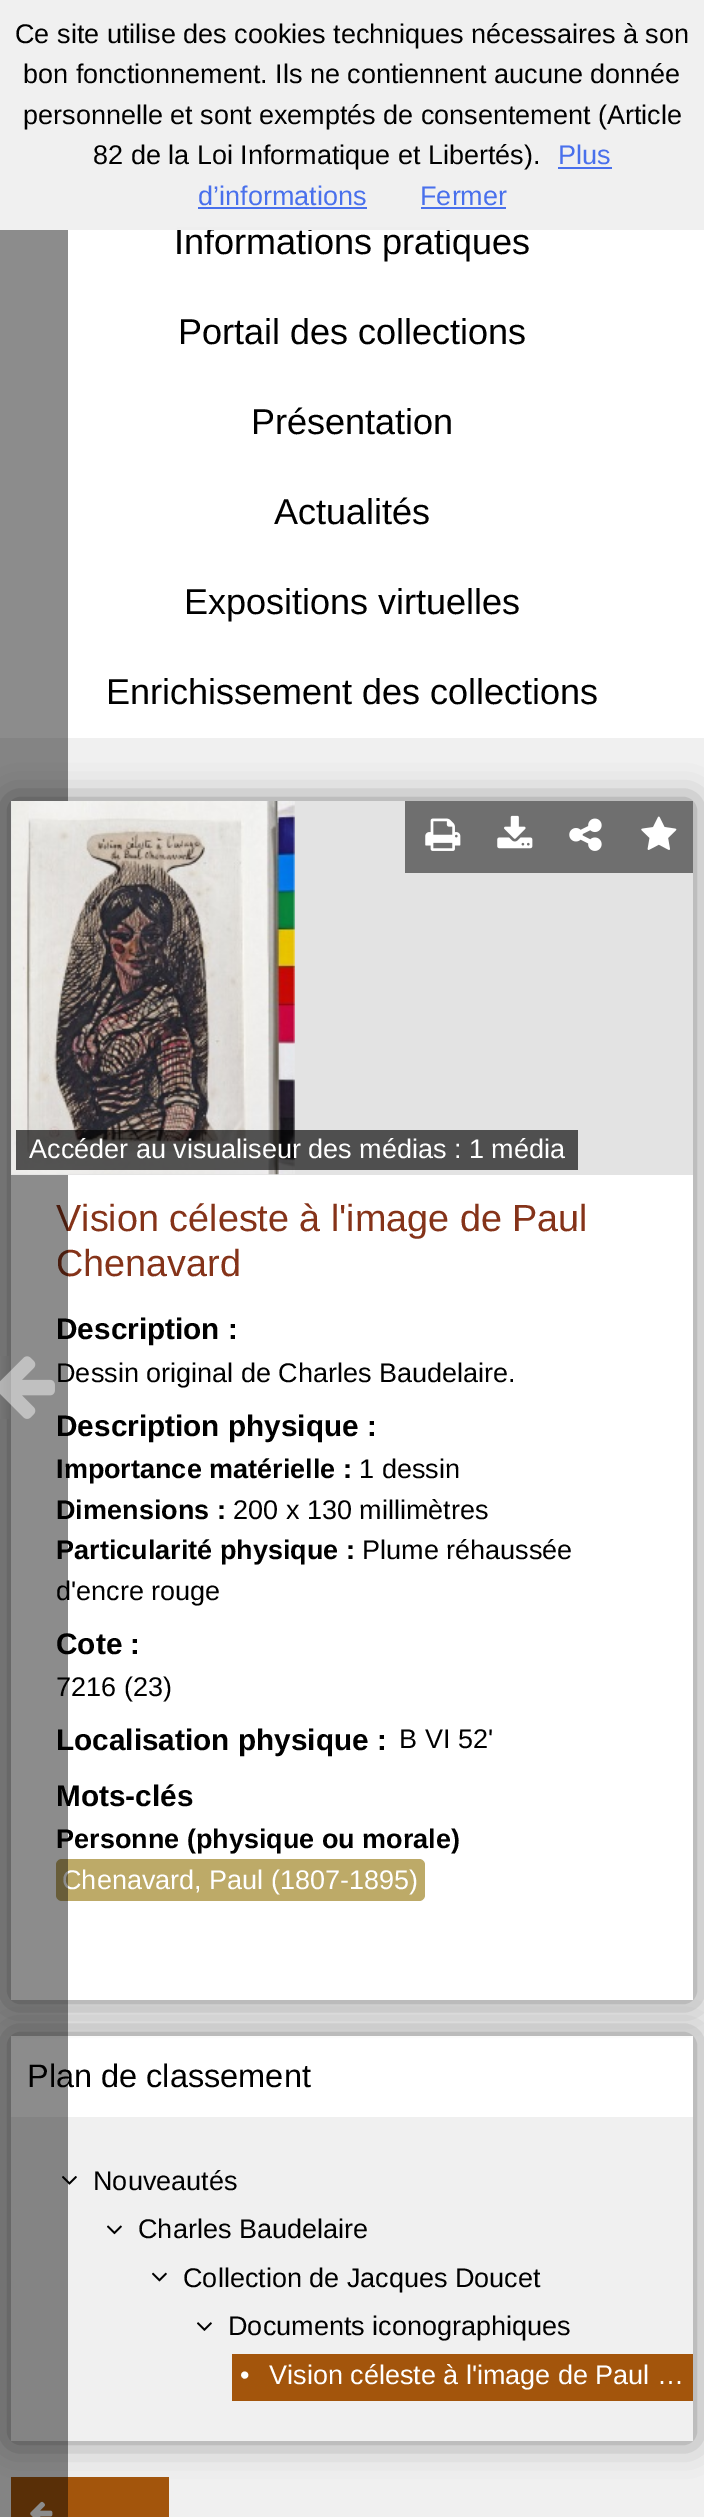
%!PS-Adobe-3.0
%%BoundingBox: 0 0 704 2517
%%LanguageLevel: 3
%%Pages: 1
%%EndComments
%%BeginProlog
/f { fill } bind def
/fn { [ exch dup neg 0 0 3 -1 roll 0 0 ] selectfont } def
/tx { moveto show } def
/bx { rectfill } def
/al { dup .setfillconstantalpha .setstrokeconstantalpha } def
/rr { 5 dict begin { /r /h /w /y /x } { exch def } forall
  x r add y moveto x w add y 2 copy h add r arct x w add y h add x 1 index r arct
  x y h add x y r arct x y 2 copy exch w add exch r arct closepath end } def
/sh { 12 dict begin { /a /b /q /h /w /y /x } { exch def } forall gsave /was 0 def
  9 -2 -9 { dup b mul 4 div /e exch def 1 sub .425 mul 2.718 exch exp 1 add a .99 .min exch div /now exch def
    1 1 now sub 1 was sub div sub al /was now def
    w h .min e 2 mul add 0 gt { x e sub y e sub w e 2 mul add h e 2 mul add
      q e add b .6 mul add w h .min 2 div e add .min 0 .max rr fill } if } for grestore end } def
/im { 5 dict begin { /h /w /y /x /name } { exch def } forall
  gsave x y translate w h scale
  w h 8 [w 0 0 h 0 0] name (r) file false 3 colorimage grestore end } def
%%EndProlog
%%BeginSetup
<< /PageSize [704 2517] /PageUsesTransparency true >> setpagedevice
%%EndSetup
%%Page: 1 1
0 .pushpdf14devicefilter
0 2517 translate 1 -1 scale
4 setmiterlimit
0.941 setgray
0 0 704 2517 bx
1 setgray
0 230 704 508 bx
/LiberationSans-Regular 36 fn
0 setgray
(Informations pratiques) 174 254 tx
0.933 setgray
177 227 273 3 bx
/LiberationSans-Regular 27 fn
0 setgray
(Ce site utilise des cookies techniques nécessaires à son) 15 43 tx
(bon fonctionnement. Ils ne contiennent aucune donnée) 23 83 tx
(personnelle et sont exemptés de consentement \(Article) 23 124 tx
(82 de la Loi Informatique et Libertés\).) 93 164 tx
0.286 0.439 0.925 setrgbcolor
(Plus) 558 164 tx
558 167 54 2 bx
(d’informations) 198 205 tx
198 207 169 2 bx
(Fermer) 420 205 tx
421 207 85 2 bx
0.639 0.333 0.047 setrgbcolor
11 2477 158 40 bx
0.533 setgray
11 2036 682 405 0 17 1 sh
1 setgray
11 2036 682 81 bx
0.533 setgray
11 801 682 1199 0 17 1 sh
1 setgray
11 1175 682 825 bx
/LiberationSans-Regular 37.75 fn
0.522 0.2 0.098 setrgbcolor
(Vision céleste à l'image de Paul) 56 1231 tx
(Chenavard) 56 1276 tx
/LiberationSans-Bold 29.75 fn
0 setgray
(Description :) 56 1339 tx
/LiberationSans-Regular 27 fn
(Dessin original de Charles Baudelaire.) 56 1382 tx
/LiberationSans-Bold 29.75 fn
(Description physique :) 56 1436 tx
/LiberationSans-Bold 27 fn
(Importance matérielle :) 56 1478 tx
(Dimensions :) 56 1519 tx
(Particularité physique :) 56 1559 tx
/LiberationSans-Regular 27 fn
(d'encre rouge) 56 1600 tx
/LiberationSans-Bold 29.75 fn
(Cote :) 56 1654 tx
/LiberationSans-Regular 27 fn
(7216 \(23\)) 56 1696 tx
/LiberationSans-Bold 29.75 fn
(Localisation physique :) 56 1750 tx
(Mots-clés) 56 1806 tx
/LiberationSans-Bold 27 fn
(Personne \(physique ou morale\)) 56 1848 tx
0.741 0.667 0.408 setrgbcolor
56 1859 369 42 6 rr f
/LiberationSans-Regular 27 fn
1 setgray
(Chenavard, Paul \(1807-1895\)) 62 1889 tx
/LiberationSans-Regular 32.5 fn
0 setgray
(Plan de classement) 27 2087 tx
0.941 setgray
11 2117 682 324 bx
(image6.raw) 62 2176 15 9 im
(image10.raw) 30 2501 23 16 im
0.45 al
0 setgray
0 230 68 2287 bx
1 al
(image0.raw) 0 1356 55 63 im
/LiberationSans-Regular 36 fn
(Portail des collections) 178 344 tx
(Présentation) 251 434 tx
(Actualités) 274 524 tx
(Expositions virtuelles) 184 614 tx
(Enrichissement des collections) 106 704 tx
0.89 setgray
11 801 682 374 bx
0.435 setgray
405 801 144 72 bx
(image1.raw) 425 818 36 33 im
549 801 144 72 bx
(image2.raw) 641 816 36 34 im
(image3.raw) 497 815 36 34 im
(image4.raw) 569 818 33 33 im
(image5.raw) 11 801 284 374 im
0.65 al
0 setgray
16 1130 562 40 bx
/LiberationSans-Regular 27 fn
1 al
1 setgray
(Accéder au visualiseur des médias : 1 média) 29 1158 tx
0 setgray
(1 dessin) 359 1478 tx
(200 x 130 millimètres) 233 1519 tx
(Plume réhaussée) 362 1559 tx
(B VI 52') 399 1748 tx
(Nouveautés) 93 2190 tx
(image7.raw) 107 2225 15 10 im
(Charles Baudelaire) 138 2238 tx
(image8.raw) 152 2272 15 10 im
(Collection de Jacques Doucet) 183 2287 tx
(image9.raw) 197 2322 15 9 im
(Documents iconographiques) 228 2335 tx
0.639 0.333 0.047 setrgbcolor
232 2354 461 47 bx
1 setgray
(•) 240 2384 tx
(Vision céleste à l'image de Paul …) 269 2384 tx
.poppdf14devicefilter showpage
%%EOF
